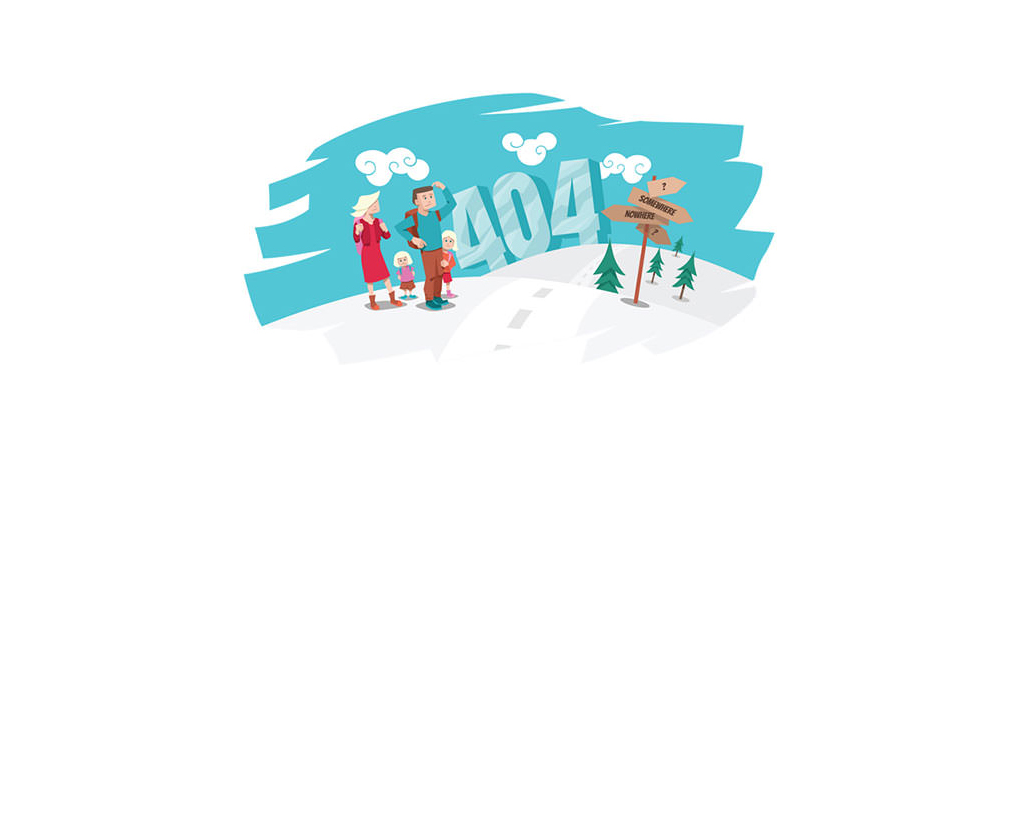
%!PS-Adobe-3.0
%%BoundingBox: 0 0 1014 827
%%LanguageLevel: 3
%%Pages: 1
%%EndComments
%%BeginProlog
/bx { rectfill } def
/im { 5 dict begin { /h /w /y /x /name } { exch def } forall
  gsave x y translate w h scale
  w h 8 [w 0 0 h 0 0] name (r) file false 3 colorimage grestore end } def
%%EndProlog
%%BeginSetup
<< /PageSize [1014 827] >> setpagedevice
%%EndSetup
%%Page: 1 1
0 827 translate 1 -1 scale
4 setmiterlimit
1 setgray
0 0 1014 827 bx
(image0.raw) 241 90 536 275 im
showpage
%%EOF
